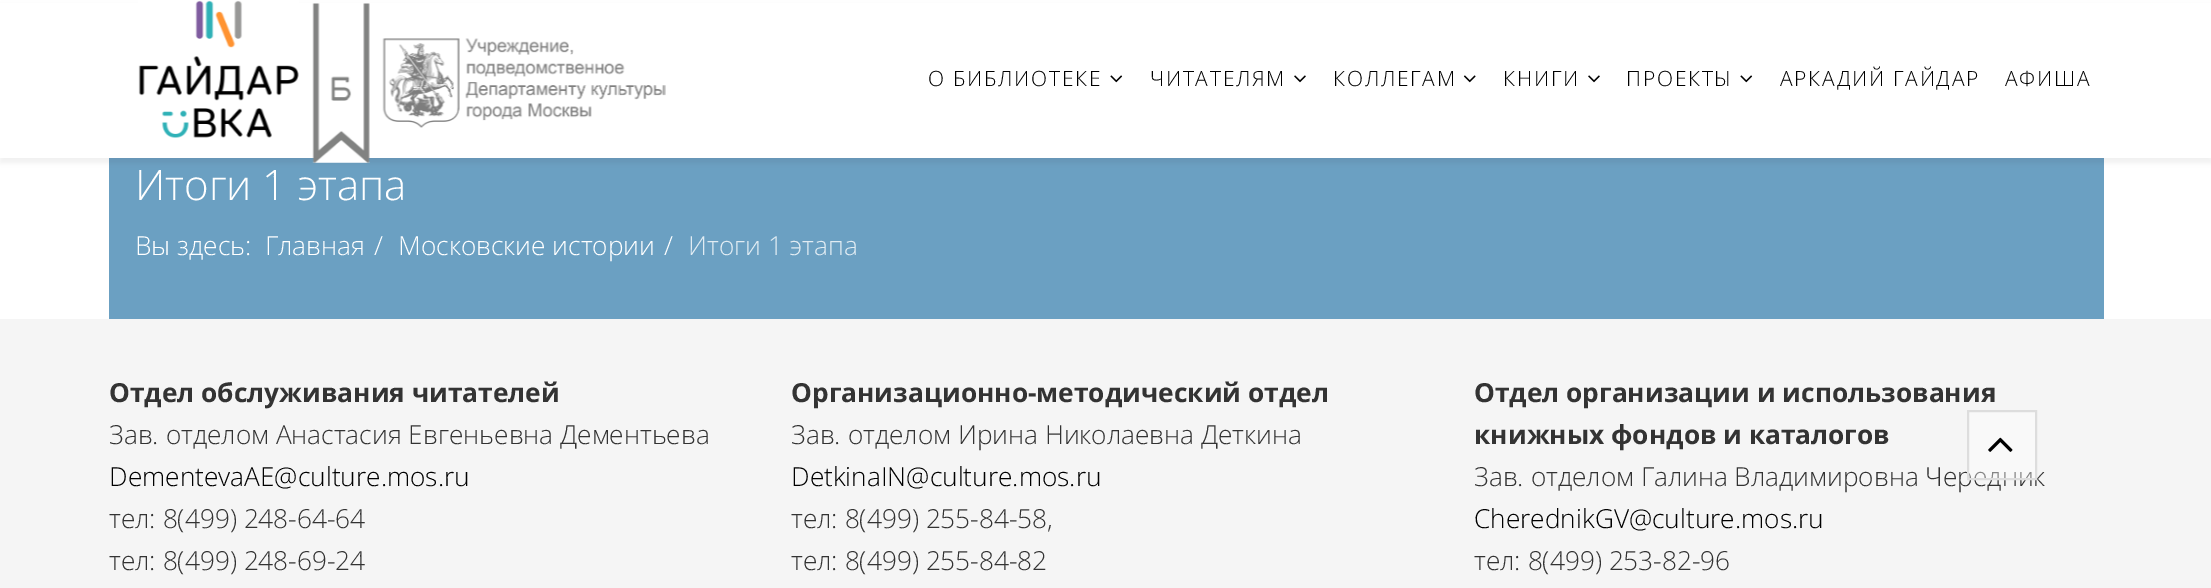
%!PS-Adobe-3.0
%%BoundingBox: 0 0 2211 588
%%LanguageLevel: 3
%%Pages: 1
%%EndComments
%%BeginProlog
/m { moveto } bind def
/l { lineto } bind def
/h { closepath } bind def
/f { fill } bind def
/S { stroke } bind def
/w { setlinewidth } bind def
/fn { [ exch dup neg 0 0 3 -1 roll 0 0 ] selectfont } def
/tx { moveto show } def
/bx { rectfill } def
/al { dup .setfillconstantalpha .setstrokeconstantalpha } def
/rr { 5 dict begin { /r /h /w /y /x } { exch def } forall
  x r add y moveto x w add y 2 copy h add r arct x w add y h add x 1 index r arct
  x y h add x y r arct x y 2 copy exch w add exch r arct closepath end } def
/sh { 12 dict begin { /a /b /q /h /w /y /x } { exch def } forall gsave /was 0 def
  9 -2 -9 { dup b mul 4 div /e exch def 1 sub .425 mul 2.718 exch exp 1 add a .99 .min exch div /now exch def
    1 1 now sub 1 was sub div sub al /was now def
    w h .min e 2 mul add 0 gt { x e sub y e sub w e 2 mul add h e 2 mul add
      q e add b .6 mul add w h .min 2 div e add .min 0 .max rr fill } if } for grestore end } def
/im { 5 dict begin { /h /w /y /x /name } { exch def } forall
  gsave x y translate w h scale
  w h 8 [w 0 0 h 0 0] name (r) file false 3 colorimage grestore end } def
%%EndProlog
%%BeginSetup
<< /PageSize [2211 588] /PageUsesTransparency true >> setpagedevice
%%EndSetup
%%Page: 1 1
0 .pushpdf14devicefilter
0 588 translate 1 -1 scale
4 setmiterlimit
1 setgray
0 0 2211 588 bx
0.42 0.627 0.761 setrgbcolor
109 158 1995 161 bx
0 setgray
0 5 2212 158 0 2.5 0.05 sh
1 setgray
0 3 2211 155 bx
(image0.raw) 138 0 161 138 im
(image1.raw) 312 3 58 160 im
(image2.raw) 382 38 284 90 im
/OpenSans-Light 21 fn
0 setgray
928 86 m 1.75 0 (О БИБЛИОТЕКЕ) ashow
(image3.raw) 1110 75 13 8 im
1150 86 m 1.75 0 (ЧИТАТЕЛЯМ) ashow
(image4.raw) 1294 75 12 8 im
1333 86 m 1.75 0 (КОЛЛЕГАМ) ashow
(image5.raw) 1463 75 13 8 im
1503 86 m 1.75 0 (КНИГИ) ashow
(image4.raw) 1588 75 12 8 im
1626 86 m 1.75 0 (ПРОЕКТЫ) ashow
(image3.raw) 1740 75 13 8 im
1780 86 m 1.75 0 (АРКАДИЙ ГАЙДАР) ashow
2005 86 m 1.75 0 (АФИША) ashow
/OpenSans-Light 42 fn
1 setgray
(Итоги 1 этапа) 135 200 tx
/OpenSans-Light 26.25 fn
(Вы здесь:) 135 255 tx
(Главная) 265 255 tx
(/) 374 255 tx
(Московские истории) 398 255 tx
(/) 664 255 tx
0.882 0.925 0.953 setrgbcolor
(Итоги 1 этапа) 688 255 tx
0.961 setgray
0 319 2211 269 bx
/OpenSans-Bold 26.25 fn
0.2 setgray
(Отдел обслуживания читателей) 109 402 tx
/OpenSans-Light 26.25 fn
(Зав. отделом Анастасия Евгеньевна Дементьева) 109 444 tx
0 setgray
(DementevaAE@culture.mos.ru) 109 486 tx
0.2 setgray
(тел: 8\(499\) 248-64-64) 109 528 tx
(тел: 8\(499\) 248-69-24) 109 570 tx
/OpenSans-Bold 26.25 fn
(Организационно-методический отдел) 791 402 tx
/OpenSans-Light 26.25 fn
(Зав. отделом Ирина Николаевна Деткина) 791 444 tx
0 setgray
(DetkinaIN@culture.mos.ru) 791 486 tx
0.2 setgray
(тел: 8\(499\) 255-84-58,) 791 528 tx
(тел: 8\(499\) 255-84-82) 791 570 tx
/OpenSans-Bold 26.25 fn
(Отдел организации и использования) 1474 402 tx
(книжных фондов и каталогов) 1474 444 tx
/OpenSans-Light 26.25 fn
(Зав. отделом Галина Владимировна Чередник) 1474 486 tx
0 setgray
(CherednikGV@culture.mos.ru) 1474 528 tx
0.2 setgray
(тел: 8\(499\) 253-82-96) 1474 570 tx
0.4 al
1 setgray
1968 411 m 2036 411 l 2036 479 l 1968 479 l h f
1 al
0.867 setgray
2 w
1968 411 m 2036 411 l 2036 479 l 1968 479 l h S
(image6.raw) 1988 437 25 15 im
.poppdf14devicefilter showpage
%%EOF
